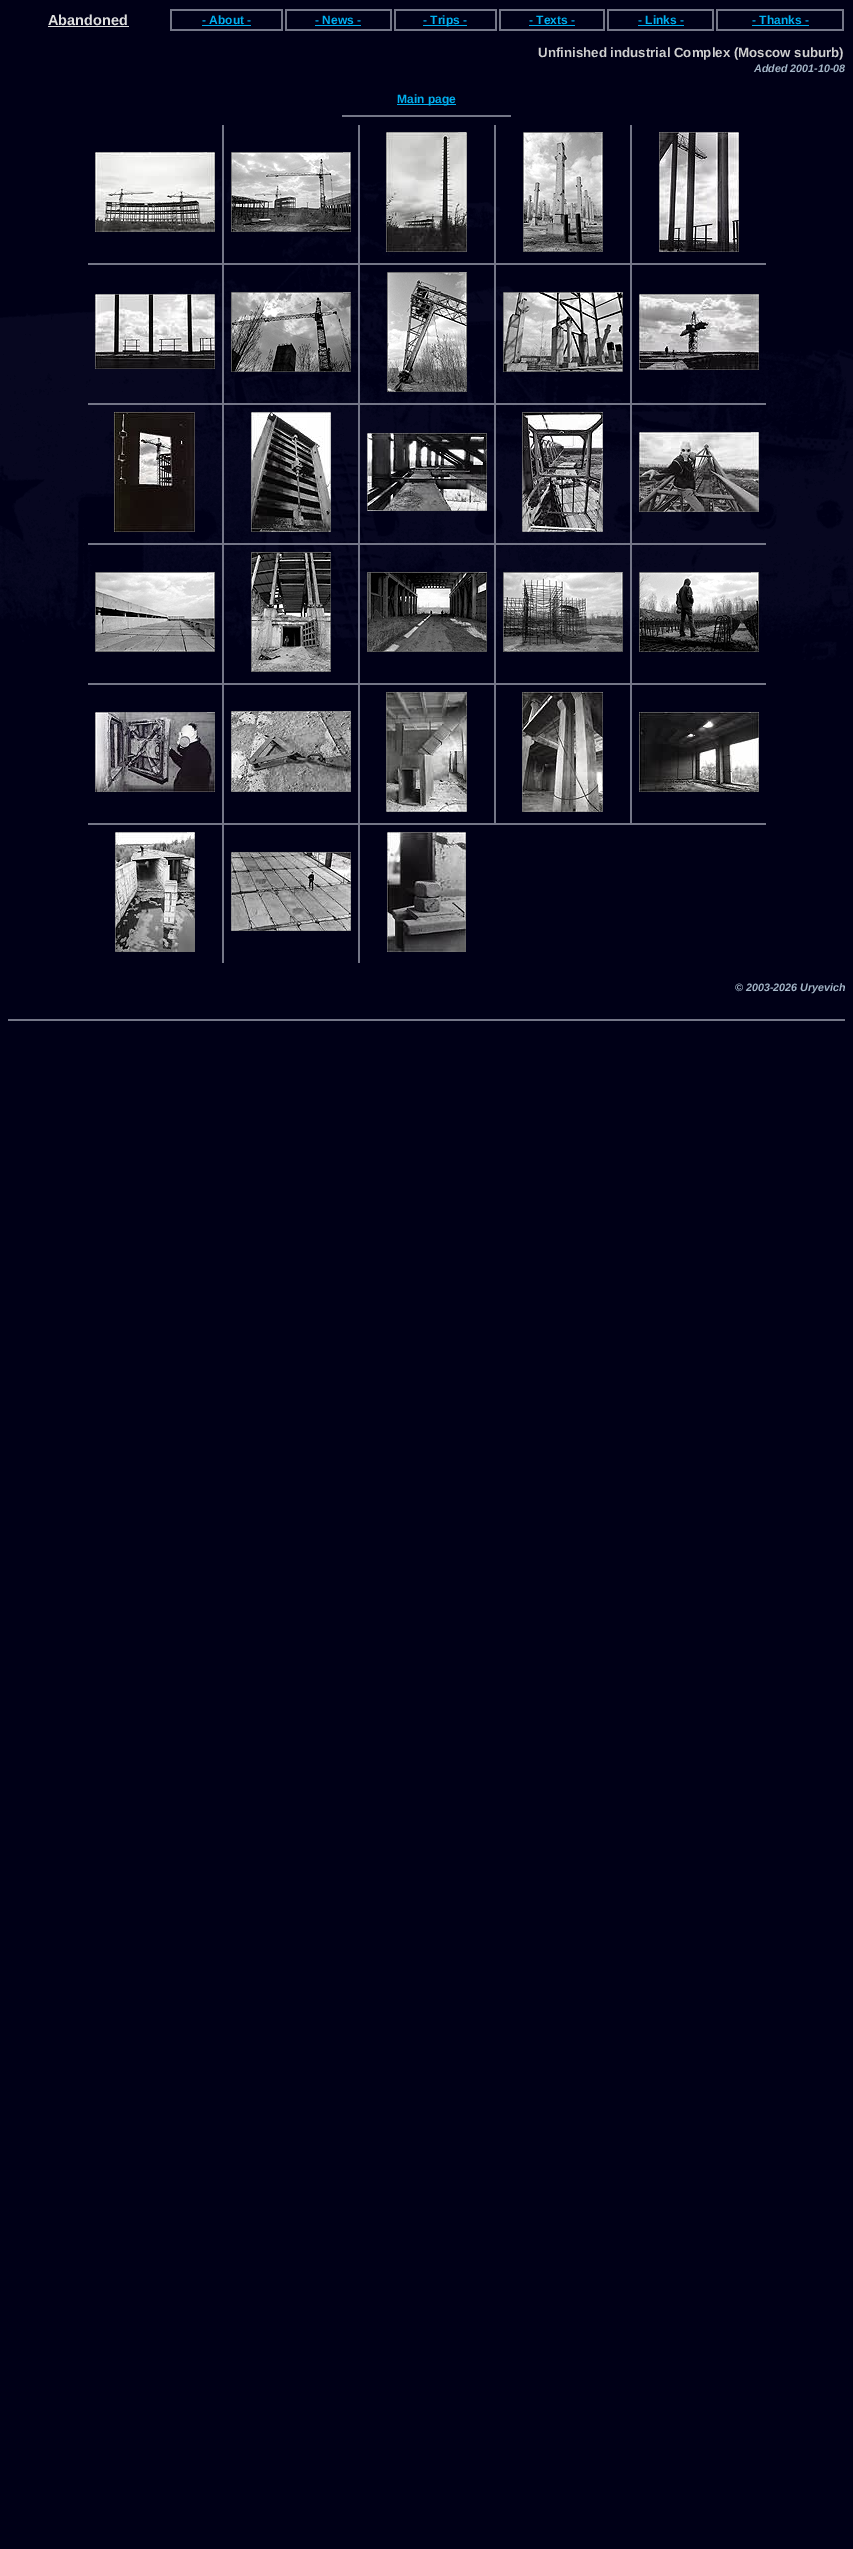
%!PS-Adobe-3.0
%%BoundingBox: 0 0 853 2549
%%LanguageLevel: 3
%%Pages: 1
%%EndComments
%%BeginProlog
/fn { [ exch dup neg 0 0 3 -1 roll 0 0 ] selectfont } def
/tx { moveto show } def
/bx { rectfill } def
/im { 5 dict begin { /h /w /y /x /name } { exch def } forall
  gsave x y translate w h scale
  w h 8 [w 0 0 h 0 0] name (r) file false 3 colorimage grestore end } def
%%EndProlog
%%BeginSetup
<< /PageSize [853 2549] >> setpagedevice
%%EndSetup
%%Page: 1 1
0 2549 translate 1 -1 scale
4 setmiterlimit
0 0 0.09 setrgbcolor
0 0 853 2549 bx
(image0.raw) 0 163 853 497 im
/LiberationSans-Bold 14.5 fn
0.875 setgray
(Abandoned) 48 25 tx
48 26 81 1 bx
0.455 0.463 0.529 setrgbcolor
170 9 113 22 bx
0 0 0.09 setrgbcolor
172 11 109 18 bx
/LiberationSans-Bold 12 fn
0 0.69 0.941 setrgbcolor
(- About -) 202 24 tx
202 25 49 1 bx
0.455 0.463 0.529 setrgbcolor
285 9 107 22 bx
0 0 0.09 setrgbcolor
287 11 103 18 bx
0 0.69 0.941 setrgbcolor
(- News -) 315 24 tx
315 25 46 1 bx
0.455 0.463 0.529 setrgbcolor
394 9 103 22 bx
0 0 0.09 setrgbcolor
396 11 99 18 bx
0 0.69 0.941 setrgbcolor
423 25 44 1 bx
(- Trips -) 423 24 tx
0.455 0.463 0.529 setrgbcolor
499 9 106 22 bx
0 0 0.09 setrgbcolor
501 11 102 18 bx
0 0.69 0.941 setrgbcolor
(- Texts -) 529 24 tx
529 25 46 1 bx
0.455 0.463 0.529 setrgbcolor
607 9 107 22 bx
0 0 0.09 setrgbcolor
609 11 103 18 bx
0 0.69 0.941 setrgbcolor
(- Links -) 638 24 tx
638 25 46 1 bx
0.455 0.463 0.529 setrgbcolor
716 9 128 22 bx
0 0 0.09 setrgbcolor
718 11 124 18 bx
0 0.69 0.941 setrgbcolor
(- Thanks -) 752 24 tx
752 25 57 1 bx
/LiberationSans-Bold 13.3 fn
0.812 setgray
(Unfinished industrial Complex \(Moscow suburb\)) 538 57 tx
/LiberationSans-BoldItalic 10.75 fn
0.643 0.714 0.78 setrgbcolor
(Added 2001-10-08) 754 72 tx
0 0.69 0.941 setrgbcolor
397 104 59 1 bx
/LiberationSans-Bold 12 fn
(Main page) 397 103 tx
0.455 0.463 0.529 setrgbcolor
342 115 169 2 bx
(image1.raw) 95 152 120 80 im
222 125 2 138 bx
(image2.raw) 231 152 120 80 im
358 125 2 138 bx
(image3.raw) 386 132 81 120 im
494 125 2 138 bx
(image4.raw) 523 132 80 120 im
630 125 2 138 bx
(image5.raw) 659 132 80 120 im
88 263 678 2 bx
(image6.raw) 95 294 120 75 im
222 265 2 138 bx
(image7.raw) 231 292 120 80 im
358 265 2 138 bx
(image8.raw) 387 272 80 120 im
494 265 2 138 bx
(image9.raw) 503 292 120 80 im
630 265 2 138 bx
(image10.raw) 639 294 120 76 im
88 403 678 2 bx
(image11.raw) 114 412 81 120 im
222 405 2 138 bx
(image12.raw) 251 412 80 120 im
358 405 2 138 bx
(image13.raw) 367 433 120 78 im
494 405 2 138 bx
(image14.raw) 522 412 81 120 im
630 405 2 138 bx
(image15.raw) 639 432 120 80 im
88 543 678 2 bx
(image16.raw) 95 572 120 80 im
222 545 2 138 bx
(image17.raw) 251 552 80 120 im
358 545 2 138 bx
(image18.raw) 367 572 120 80 im
494 545 2 138 bx
(image19.raw) 503 572 120 80 im
630 545 2 138 bx
(image20.raw) 639 572 120 80 im
88 683 678 2 bx
(image21.raw) 95 712 120 80 im
222 685 2 138 bx
(image22.raw) 231 711 120 81 im
358 685 2 138 bx
(image23.raw) 386 692 81 120 im
494 685 2 138 bx
(image24.raw) 522 692 81 120 im
630 685 2 138 bx
(image25.raw) 639 712 120 80 im
88 823 678 2 bx
(image26.raw) 115 832 80 120 im
222 825 2 138 bx
(image27.raw) 231 852 120 79 im
358 825 2 138 bx
(image28.raw) 387 832 79 120 im
/LiberationSans-BoldItalic 10.75 fn
0.643 0.714 0.78 setrgbcolor
(© 2003-2026 Uryevich) 735 991 tx
0.455 0.463 0.529 setrgbcolor
8 1019 837 2 bx
showpage
%%EOF
